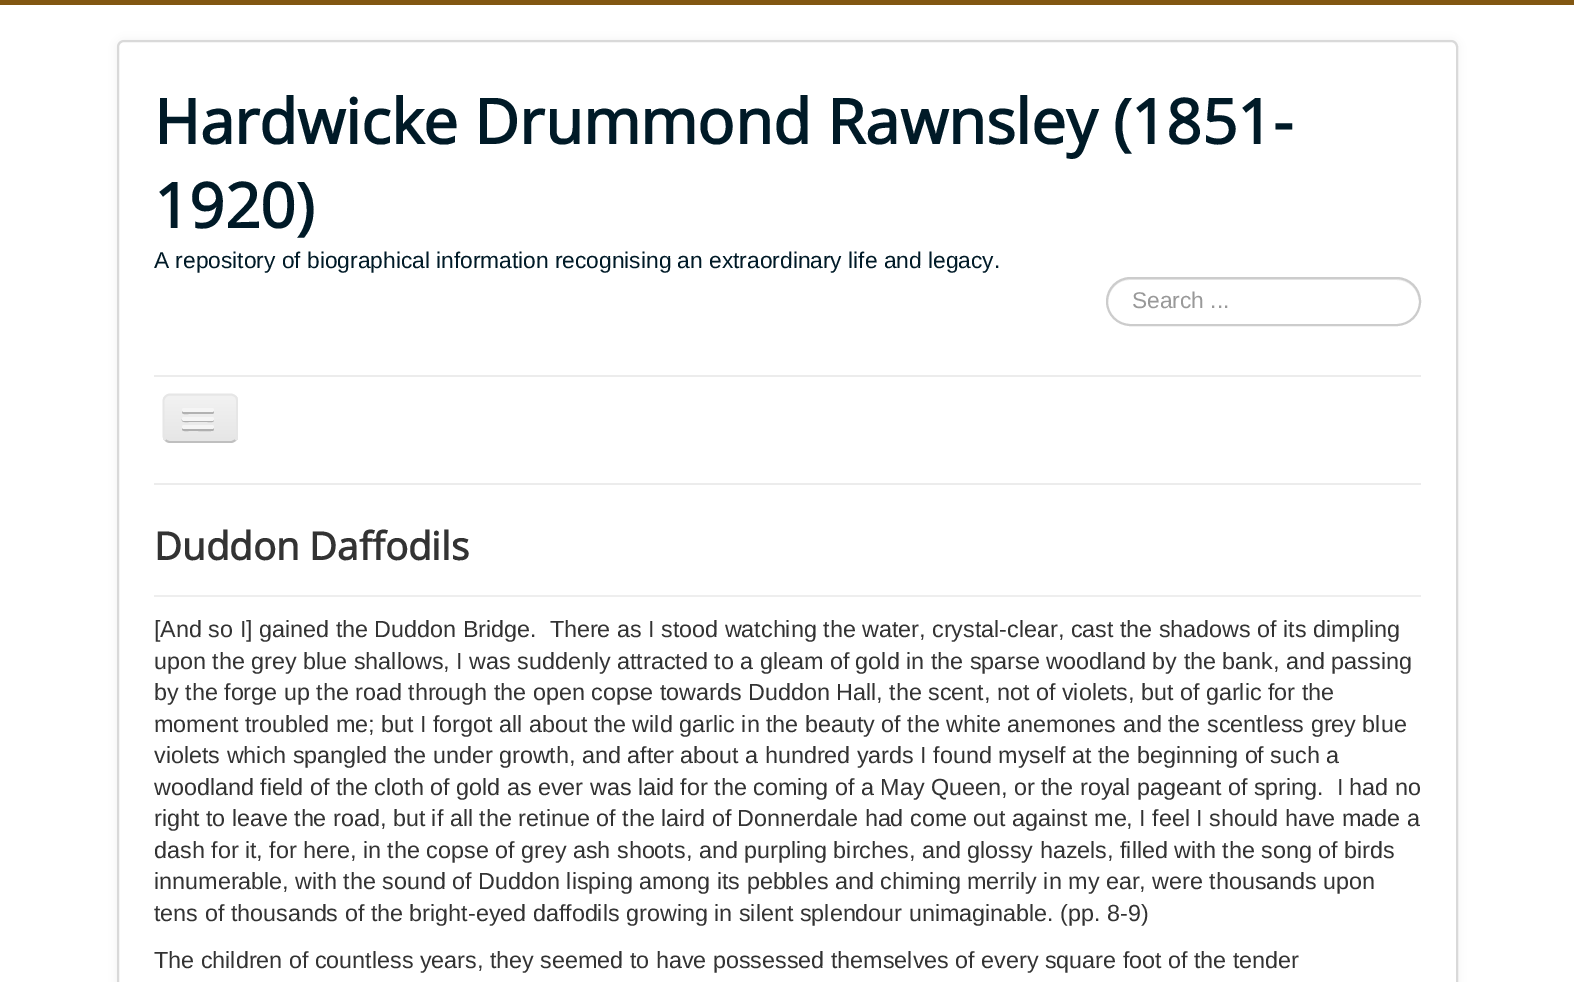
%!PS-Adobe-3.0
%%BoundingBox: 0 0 1574 982
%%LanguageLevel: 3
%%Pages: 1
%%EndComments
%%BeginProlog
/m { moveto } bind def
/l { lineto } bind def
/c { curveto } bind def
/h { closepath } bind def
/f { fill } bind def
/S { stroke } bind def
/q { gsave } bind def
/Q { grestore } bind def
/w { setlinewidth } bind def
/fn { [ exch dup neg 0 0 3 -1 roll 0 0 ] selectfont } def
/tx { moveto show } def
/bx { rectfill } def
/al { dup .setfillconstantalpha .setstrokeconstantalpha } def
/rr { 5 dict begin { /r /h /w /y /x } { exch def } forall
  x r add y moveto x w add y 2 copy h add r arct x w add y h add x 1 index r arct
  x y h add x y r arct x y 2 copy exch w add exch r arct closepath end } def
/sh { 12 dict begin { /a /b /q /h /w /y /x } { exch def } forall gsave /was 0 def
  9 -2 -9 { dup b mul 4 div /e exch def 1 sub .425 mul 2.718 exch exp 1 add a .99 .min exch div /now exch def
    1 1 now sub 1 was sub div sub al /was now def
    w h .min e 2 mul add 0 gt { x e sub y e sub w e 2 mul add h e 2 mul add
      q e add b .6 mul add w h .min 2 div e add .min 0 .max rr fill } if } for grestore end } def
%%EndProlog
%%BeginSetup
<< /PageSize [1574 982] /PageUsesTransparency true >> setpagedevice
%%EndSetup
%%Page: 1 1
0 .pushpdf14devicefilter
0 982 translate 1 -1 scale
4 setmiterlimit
1 setgray
0 0 1574 982 bx
0.51 0.341 0.071 setrgbcolor
0 0 1574 5 bx
0 setgray
117 40 1341 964 7 5 0.05 sh
1 setgray
118 41 1339 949 6 rr q f Q
0.851 setgray
2 w
S
/OpenSans-Bold 62 fn
0 0.102 0.153 setrgbcolor
(Hardwicke Drummond Rawnsley \(1851-) 154 144 tx
(1920\)) 154 228 tx
/LiberationSans-Regular 22.75 fn
(A repository of biographical information recognising an extraordinary life and legacy.) 154 268 tx
0.925 setgray
1130 280 m 1396 280 l 1409 280 1418 289 1419 302 c 1419 301 l 1419 288 1409 278 1396 278 c 1131 278 l 1118 278 1108 288 1108 301 c 1108 302 l 1109 289 1118 280 1130 280 c h f
0.8 setgray
1107 278 313 47 23.5 rr S
0.6 setgray
(Search ...) 1132 308 tx
0.925 setgray
154 375 1267 2 bx
154 483 1267 2 bx
0.929 setgray
163 394 75 49 7 rr f
q
163 394 75 49 7 rr clip newpath
q 163 396 m 238 396 l 238 441 l 163 441 l h clip newpath
<< /ShadingType 2 /ColorSpace /DeviceRGB /Coords [200 396 200 441] /Extend [true true] /Function << /FunctionType 2 /Domain [0 1] /C0 [0.949 0.949 0.949] /C1 [0.902 0.902 0.902] /N 1 >> >> shfill Q
Q
0.749 setgray
1.8 w
235.5 440 m 234 441 232.5 442 231 442 c 170 442 l 168 442 166.5 441 165.5 440 c S
0.902 setgray
165.5 440 m 164.5 439 163.5 437.5 163.5 436 c 163.5 401 l 163.5 399 164.5 397.5 165.5 396.5 c 166.5 395.5 168 394.5 170 394.5 c 231 394.5 l 232.5 394.5 234 395.5 235.5 396.5 c 236.5 397.5 237 399 237 401 c 237 436 l 237 437.5 236.5 439 235.5 440 c S
0.698 setgray
182.5 410.5 m 182 411 182 412 182 412.5 c 182.5 415 187.5 414 188.5 414 c 212 414 l 214 414 214.5 411.5 213 410.5 c 212 411 l 183.5 411 l h f
0.961 setgray
182 408 32 4 2 rr f
0.69 setgray
182 419 m 180.5 423 188 422 188.5 422 c 207.5 422 l 208.5 422 213.5 423 214 420.5 c 214 420 214 419 213.5 418.5 c 213.5 419.5 212.5 420 212 420 c 184 420 l 183 420 182.5 419.5 182 419 c h f
0.961 setgray
182 417 32 4 2 rr f
0.686 setgray
182.5 428 m 180 432 188 431 188.5 431 c 198 431 l 200.5 431 212 431.5 213.5 430.5 c 214 429.5 214 428.5 213.5 427.5 c 212.5 428.5 l 183.5 428.5 l h f
0.961 setgray
182 425 32 4 2 rr f
0.933 setgray
154 595 1267 2 bx
/OpenSans-Bold 38.5 fn
0.2 setgray
(Duddon Daffodils) 154 560 tx
/LiberationSans-Regular 23.33 fn
([And so I] gained the Duddon Bridge.  There as I stood watching the water, crystal-clear, cast the shadows of its dimpling) 154 637 tx
(upon the grey blue shallows, I was suddenly attracted to a gleam of gold in the sparse woodland by the bank, and passing) 154 669 tx
(by the forge up the road through the open copse towards Duddon Hall, the scent, not of violets, but of garlic for the) 154 700 tx
(moment troubled me; but I forgot all about the wild garlic in the beauty of the white anemones and the scentless grey blue) 154 732 tx
(violets which spangled the under growth, and after about a hundred yards I found myself at the beginning of such a) 154 763 tx
(woodland field of the cloth of gold as ever was laid for the coming of a May Queen, or the royal pageant of spring.  I had no) 154 795 tx
(right to leave the road, but if all the retinue of the laird of Donnerdale had come out against me, I feel I should have made a) 154 826 tx
(dash for it, for here, in the copse of grey ash shoots, and purpling birches, and glossy hazels, filled with the song of birds) 154 858 tx
(innumerable, with the sound of Duddon lisping among its pebbles and chiming merrily in my ear, were thousands upon) 154 889 tx
(tens of thousands of the bright-eyed daffodils growing in silent splendour unimaginable. \(pp. 8-9\)) 154 921 tx
(The children of countless years, they seemed to have possessed themselves of every square foot of the tender) 154 968 tx
.poppdf14devicefilter showpage
%%EOF
